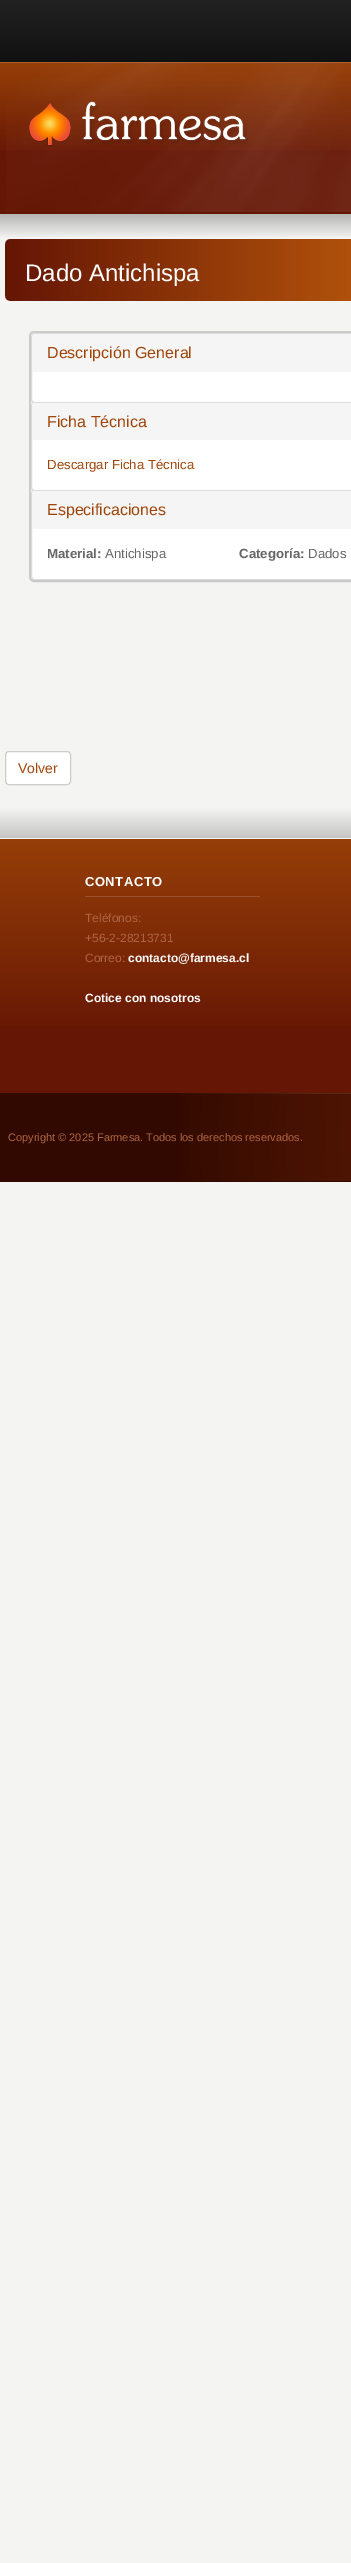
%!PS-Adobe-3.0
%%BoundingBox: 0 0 351 2563
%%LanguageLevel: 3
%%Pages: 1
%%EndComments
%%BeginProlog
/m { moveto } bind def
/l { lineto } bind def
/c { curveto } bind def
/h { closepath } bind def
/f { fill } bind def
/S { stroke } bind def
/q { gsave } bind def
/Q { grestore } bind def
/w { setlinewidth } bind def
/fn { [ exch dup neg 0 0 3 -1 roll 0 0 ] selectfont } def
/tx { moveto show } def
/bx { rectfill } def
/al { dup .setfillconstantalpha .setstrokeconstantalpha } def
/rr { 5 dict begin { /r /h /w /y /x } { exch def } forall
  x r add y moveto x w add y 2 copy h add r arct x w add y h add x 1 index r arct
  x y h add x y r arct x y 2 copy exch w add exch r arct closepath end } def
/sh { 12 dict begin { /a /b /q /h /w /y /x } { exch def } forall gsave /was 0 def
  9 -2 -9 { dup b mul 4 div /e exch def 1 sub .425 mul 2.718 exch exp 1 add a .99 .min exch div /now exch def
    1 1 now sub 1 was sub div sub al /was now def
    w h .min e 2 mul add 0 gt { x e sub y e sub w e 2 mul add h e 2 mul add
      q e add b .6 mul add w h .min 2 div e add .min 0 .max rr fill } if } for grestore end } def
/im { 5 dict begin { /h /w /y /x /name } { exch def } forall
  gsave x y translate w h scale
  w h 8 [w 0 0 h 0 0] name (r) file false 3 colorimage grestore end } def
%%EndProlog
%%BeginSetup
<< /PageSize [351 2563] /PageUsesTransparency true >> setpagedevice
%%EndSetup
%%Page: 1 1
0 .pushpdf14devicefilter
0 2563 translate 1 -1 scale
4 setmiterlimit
0.957 0.957 0.949 setrgbcolor
0 0 351 2563 bx
q 0 0 m 351 0 l 351 62 l 0 62 l h clip newpath
<< /ShadingType 2 /ColorSpace /DeviceRGB /Coords [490 0 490 62] /Extend [true true] /Function << /FunctionType 2 /Domain [0 1] /C0 [0.133 0.133 0.133] /C1 [0.067 0.067 0.067] /N 1 >> >> shfill Q
0.396 0.086 0.016 setrgbcolor
0 150 351 64 bx
(image0.raw) 0 62 351 88 im
(image1.raw) 6 62 345 150 im
(image2.raw) 28 101 220 45 im
(image3.raw) 0 214 351 23 im
(image4.raw) 5 239 346 62 im
(image5.raw) 5 239 7 6 im
(image6.raw) 5 294 8 7 im
/LiberationSans-Regular 24 fn
1 setgray
(Dado Antichispa) 25 281 tx
30 332 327 249 4 rr q f Q
0.8 setgray
2 w
S
0 setgray
31 334 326 70 4 0.5 0.05 sh
1 setgray
31.5 333.5 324 69 3.5 rr q f Q
0.867 setgray
1 w
S
0.961 setgray
35 334 m 351 334 l 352.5 334 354 335.5 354 337 c 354 372 l 32 372 l 32 337 l 32 335.5 33.5 334 35 334 c h f
/LiberationSans-Regular 16 fn
0.627 0.271 0.039 setrgbcolor
(Descripción General) 47 358 tx
0 setgray
31 403 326 89 4 0.5 0.05 sh
1 setgray
31.5 402.5 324 88 3.5 rr q f Q
0.867 setgray
S
0.961 setgray
35 403 m 351 403 l 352.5 403 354 404.5 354 406 c 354 440 l 32 440 l 32 406 l 32 404.5 33.5 403 35 403 c h f
0.627 0.271 0.039 setrgbcolor
(Ficha Técnica) 47 427 tx
/LiberationSans-Regular 13.25 fn
(Descargar Ficha Técnica) 47 469 tx
0 setgray
31 491 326 90 4 0.5 0.05 sh
1 setgray
31.5 490.5 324 89 3.5 rr q f Q
0.867 setgray
S
0.961 setgray
35 491 m 351 491 l 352.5 491 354 492.5 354 494 c 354 529 l 32 529 l 32 494 l 32 492.5 33.5 491 35 491 c h f
/LiberationSans-Regular 16 fn
0.627 0.271 0.039 setrgbcolor
(Especificaciones) 47 515 tx
/LiberationSans-Bold 13.25 fn
0.4 setgray
(Material:) 47 558 tx
/LiberationSans-Regular 13.25 fn
(Antichispa) 105 558 tx
/LiberationSans-Bold 13.25 fn
(Categoría:) 239 558 tx
/LiberationSans-Regular 13.25 fn
(Dados) 308 558 tx
1 setgray
5.5 751.5 65 33 3.5 rr q f Q
0.8 setgray
S
/LiberationSans-Regular 14 fn
0.627 0.271 0.039 setrgbcolor
(Volver) 18 773 tx
0.396 0.086 0.016 setrgbcolor
0 1026 351 67 bx
(image7.raw) 0 790 351 236 im
0.608 0.318 0.173 setrgbcolor
85 896 175 1 bx
/LiberationSans-Bold 13 fn
1 setgray
85 886 m 0.5 0 (CONTACTO) ashow
/LiberationSans-Regular 12 fn
0.678 0.392 0.263 setrgbcolor
(Teléfonos:) 85 922 tx
(+56-2-28213731) 85 942 tx
(Correo:) 85 962 tx
/LiberationSans-Bold 12 fn
1 setgray
(contacto@farmesa.cl) 128 962 tx
(Cotice con nosotros) 85 1002 tx
0.192 0.035 0 setrgbcolor
0 1093 351 89 bx
(image8.raw) 179 1093 172 88 im
/LiberationSans-Regular 11 fn
0.678 0.392 0.263 setrgbcolor
(Copyright © 2025 Farmesa. Todos los derechos reservados.) 8 1141 tx
.poppdf14devicefilter showpage
%%EOF
